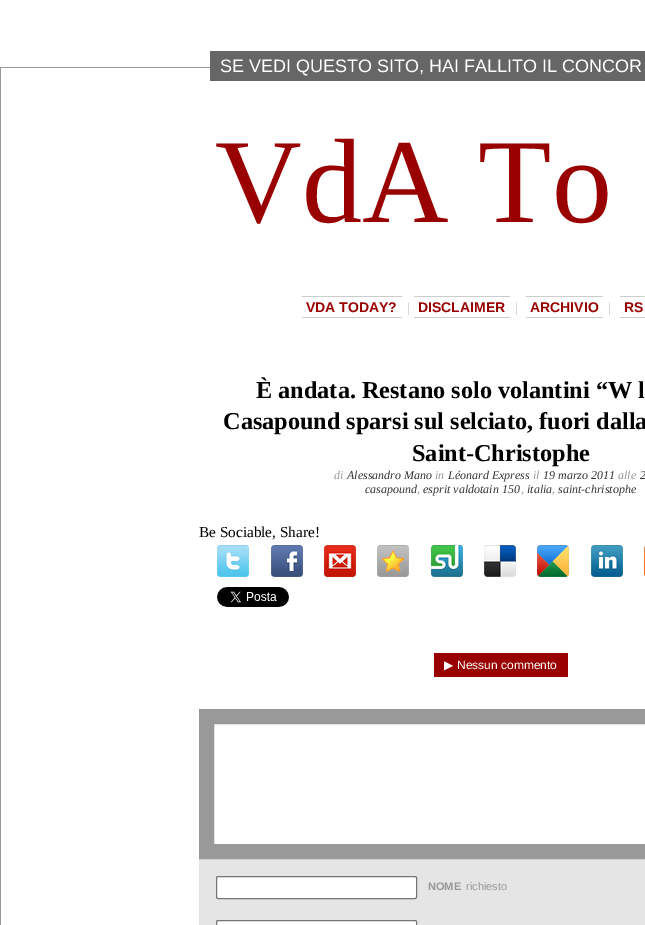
%!PS-Adobe-3.0
%%BoundingBox: 0 0 645 925
%%LanguageLevel: 3
%%Pages: 1
%%EndComments
%%BeginProlog
/f { fill } bind def
/S { stroke } bind def
/q { gsave } bind def
/Q { grestore } bind def
/w { setlinewidth } bind def
/fn { [ exch dup neg 0 0 3 -1 roll 0 0 ] selectfont } def
/tx { moveto show } def
/bx { rectfill } def
/rr { 5 dict begin { /r /h /w /y /x } { exch def } forall
  x r add y moveto x w add y 2 copy h add r arct x w add y h add x 1 index r arct
  x y h add x y r arct x y 2 copy exch w add exch r arct closepath end } def
/im { 5 dict begin { /h /w /y /x /name } { exch def } forall
  gsave x y translate w h scale
  w h 8 [w 0 0 h 0 0] name (r) file false 3 colorimage grestore end } def
%%EndProlog
%%BeginSetup
<< /PageSize [645 925] >> setpagedevice
%%EndSetup
%%Page: 1 1
0 925 translate 1 -1 scale
4 setmiterlimit
1 setgray
0 0 645 925 bx
0.4 setgray
210 51 435 30 bx
/LiberationSans-Regular 18 fn
1 setgray
(SE VEDI QUESTO SITO, HAI FALLITO IL CONCOR) 220 72 tx
0.6 setgray
0 67 210 1 bx
0 67 1 858 bx
/LiberationSerif-Regular 120 fn
0.6 0 0 setrgbcolor
(VdA To) 215 222 tx
/LiberationSans-Bold 14 fn
(VDA TODAY?) 306 312 tx
0.8 setgray
302 296 100 1 bx
302 317 100 1 bx
/LiberationSerif-Regular 14 fn
(|) 407 312 tx
/LiberationSans-Bold 14 fn
0.6 0 0 setrgbcolor
(DISCLAIMER) 418 312 tx
0.8 setgray
414 296 96 1 bx
414 317 96 1 bx
/LiberationSerif-Regular 14 fn
(|) 515 312 tx
/LiberationSans-Bold 14 fn
0.6 0 0 setrgbcolor
(ARCHIVIO) 530 312 tx
0.8 setgray
526 296 77 1 bx
526 317 77 1 bx
/LiberationSerif-Regular 14 fn
(|) 608 312 tx
/LiberationSans-Bold 14 fn
0.6 0 0 setrgbcolor
(RS) 624 312 tx
0.8 setgray
620 296 25 1 bx
620 317 25 1 bx
/LiberationSerif-Bold 24.25 fn
0 setgray
(È andata. Restano solo volantini “W l) 256 398 tx
(Casapound sparsi sul selciato, fuori dalla) 223 429 tx
(Saint-Christophe) 412 461 tx
/LiberationSerif-Italic 12 fn
0.6 setgray
(di) 334 479 tx
0.2 setgray
(Alessandro Mano) 347 479 tx
0.6 setgray
(in) 435 479 tx
0.2 setgray
(Léonard Express) 448 479 tx
0.6 setgray
(il) 533 479 tx
0.2 setgray
(19 marzo 2011) 543 479 tx
0.6 setgray
(alle) 618 479 tx
0.2 setgray
(2) 640 479 tx
(casapound) 365 493 tx
0.6 setgray
(,) 417 493 tx
0.2 setgray
(esprit valdotain 150) 423 493 tx
0.6 setgray
(,) 521 493 tx
0.2 setgray
(italia) 527 493 tx
0.6 setgray
(,) 552 493 tx
0.2 setgray
(saint-christophe) 558 493 tx
/LiberationSerif-Regular 15.25 fn
0 setgray
(Be Sociable, Share!) 199 537 tx
(image0.raw) 217 545 32 32 im
(image1.raw) 271 545 32 32 im
(image2.raw) 324 545 32 32 im
(image3.raw) 377 545 32 32 im
(image4.raw) 431 545 32 32 im
(image5.raw) 484 545 32 32 im
(image6.raw) 537 545 32 32 im
(image7.raw) 591 545 32 32 im
(image8.raw) 644 546 1 30 im
(image9.raw) 217 587 72 20 im
0.6 0 0 setrgbcolor
434 653 134 24 bx
/DejaVuSans-Regular 12 fn
1 setgray
(▶) 444 669 tx
/LiberationSans-Regular 12 fn
(Nessun commento) 457 669 tx
0.898 setgray
199 859 446 66 bx
0.6 setgray
15 w
206.5 716.5 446 135 rectstroke
1 setgray
216.5 876.5 200 22 1.5 rr q f Q
0.463 setgray
1 w
S
/LiberationSans-Bold 11 fn
0.6 setgray
(NOME) 428 890 tx
/LiberationSans-Regular 11 fn
(richiesto) 466 890 tx
1 setgray
216.5 920.5 200 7 1.5 rr q f Q
0.463 setgray
S
showpage
%%EOF
